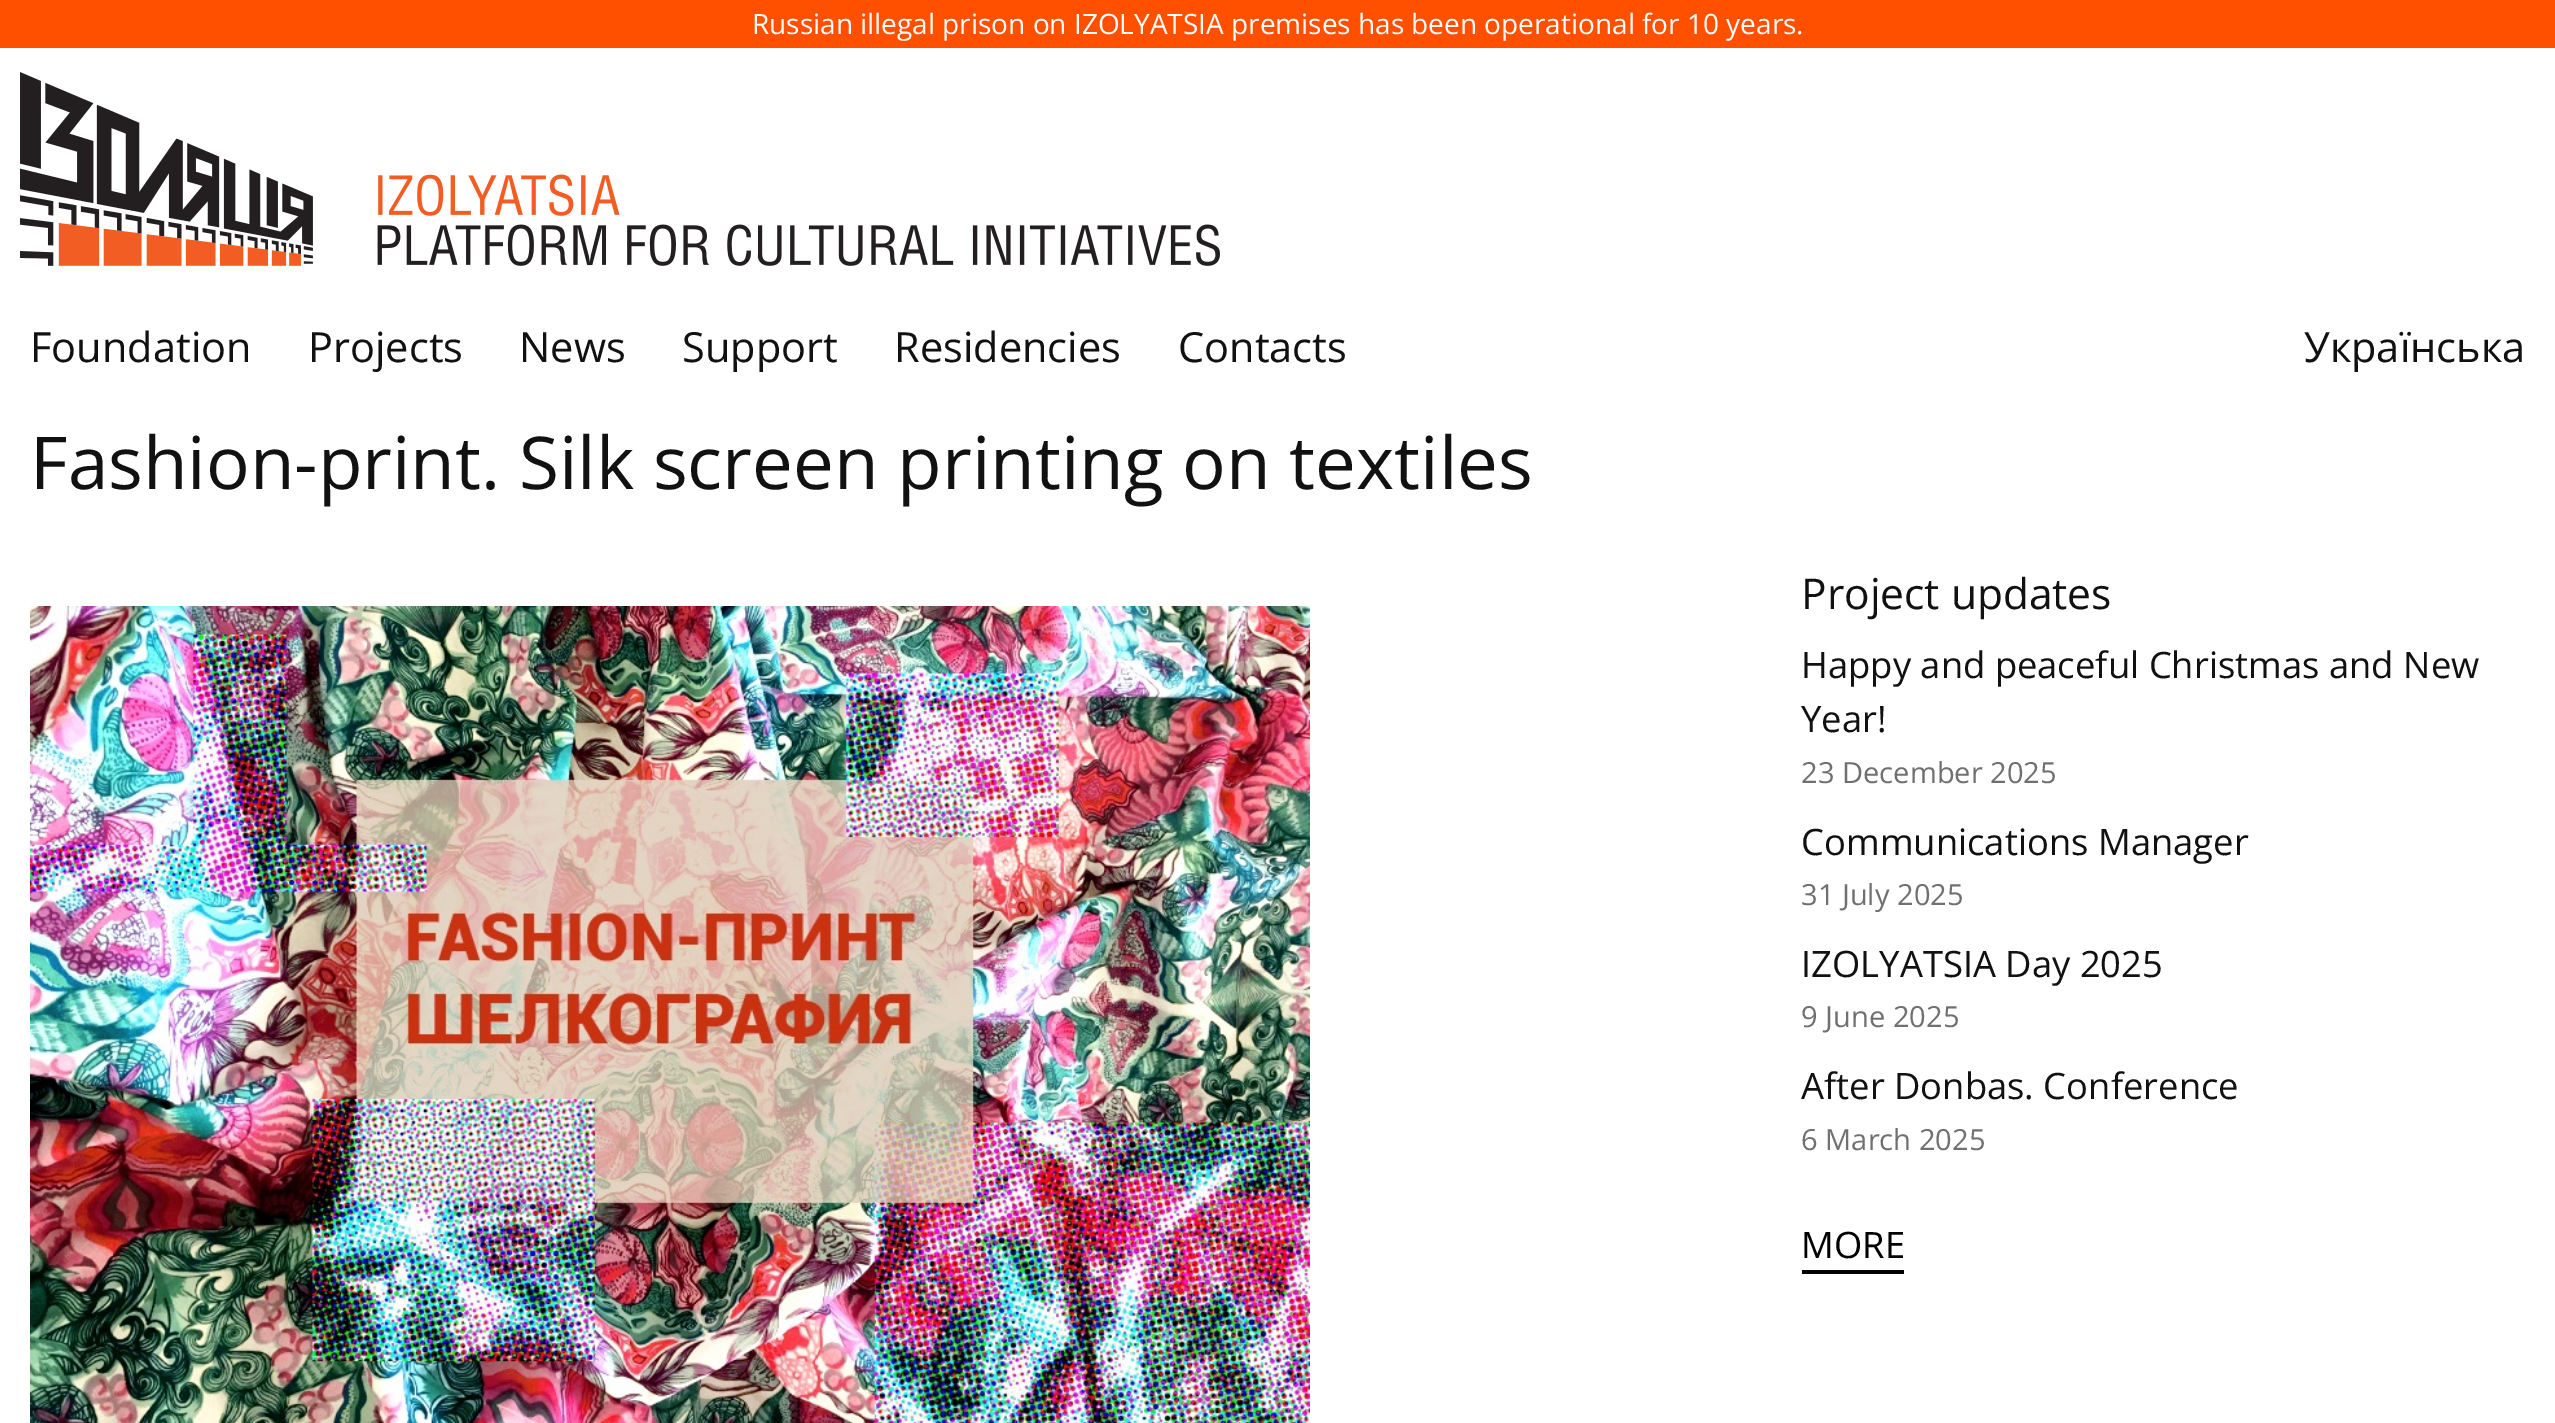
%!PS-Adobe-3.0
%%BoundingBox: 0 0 2555 1423
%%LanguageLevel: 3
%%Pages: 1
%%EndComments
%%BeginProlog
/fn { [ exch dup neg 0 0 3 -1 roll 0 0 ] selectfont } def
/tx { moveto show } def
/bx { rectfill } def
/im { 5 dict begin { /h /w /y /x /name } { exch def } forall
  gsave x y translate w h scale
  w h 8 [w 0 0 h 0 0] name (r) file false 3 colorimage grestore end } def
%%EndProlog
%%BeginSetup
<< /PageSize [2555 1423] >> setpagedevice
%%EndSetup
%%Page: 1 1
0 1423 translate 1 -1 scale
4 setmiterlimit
1 setgray
0 0 2555 1423 bx
1 0.314 0 setrgbcolor
0 0 2555 48 bx
/OpenSans-Regular 28 fn
1 setgray
(Russian illegal prison on IZOLYATSIA premises has been operational for 10 years.) 752 34 tx
(image0.raw) 20 72 1200 194 im
/OpenSans-Regular 41.5 fn
0.067 setgray
(Foundation) 30 362 tx
(Projects) 308 362 tx
(News) 519 362 tx
(Support) 682 362 tx
(Residencies) 894 362 tx
(Contacts) 1178 362 tx
(Українська) 2304 362 tx
/OpenSans-Regular 72.8 fn
(Fashion-print. Silk screen printing on textiles) 30 489 tx
(image1.raw) 30 606 1280 817 im
/OpenSans-Regular 42.5 fn
(Project updates) 1801 609 tx
/OpenSans-Regular 36.4 fn
(Happy and peaceful Christmas and New) 1801 678 tx
(Year!) 1801 732 tx
/OpenSans-Regular 29.1 fn
0.439 setgray
(23 December 2025) 1801 783 tx
/OpenSans-Regular 36.4 fn
0.067 setgray
(Communications Manager) 1801 855 tx
/OpenSans-Regular 29.1 fn
0.439 setgray
(31 July 2025) 1801 905 tx
/OpenSans-Regular 36.4 fn
0.067 setgray
(IZOLYATSIA Day 2025) 1801 977 tx
/OpenSans-Regular 29.1 fn
0.439 setgray
(9 June 2025) 1801 1027 tx
/OpenSans-Regular 36.4 fn
0.067 setgray
(After Donbas. Conference) 1801 1099 tx
/OpenSans-Regular 29.1 fn
0.439 setgray
(6 March 2025) 1801 1150 tx
0 setgray
1802 1270 102 4 bx
/OpenSans-Regular 36.4 fn
(MORE) 1801 1258 tx
showpage
%%EOF
